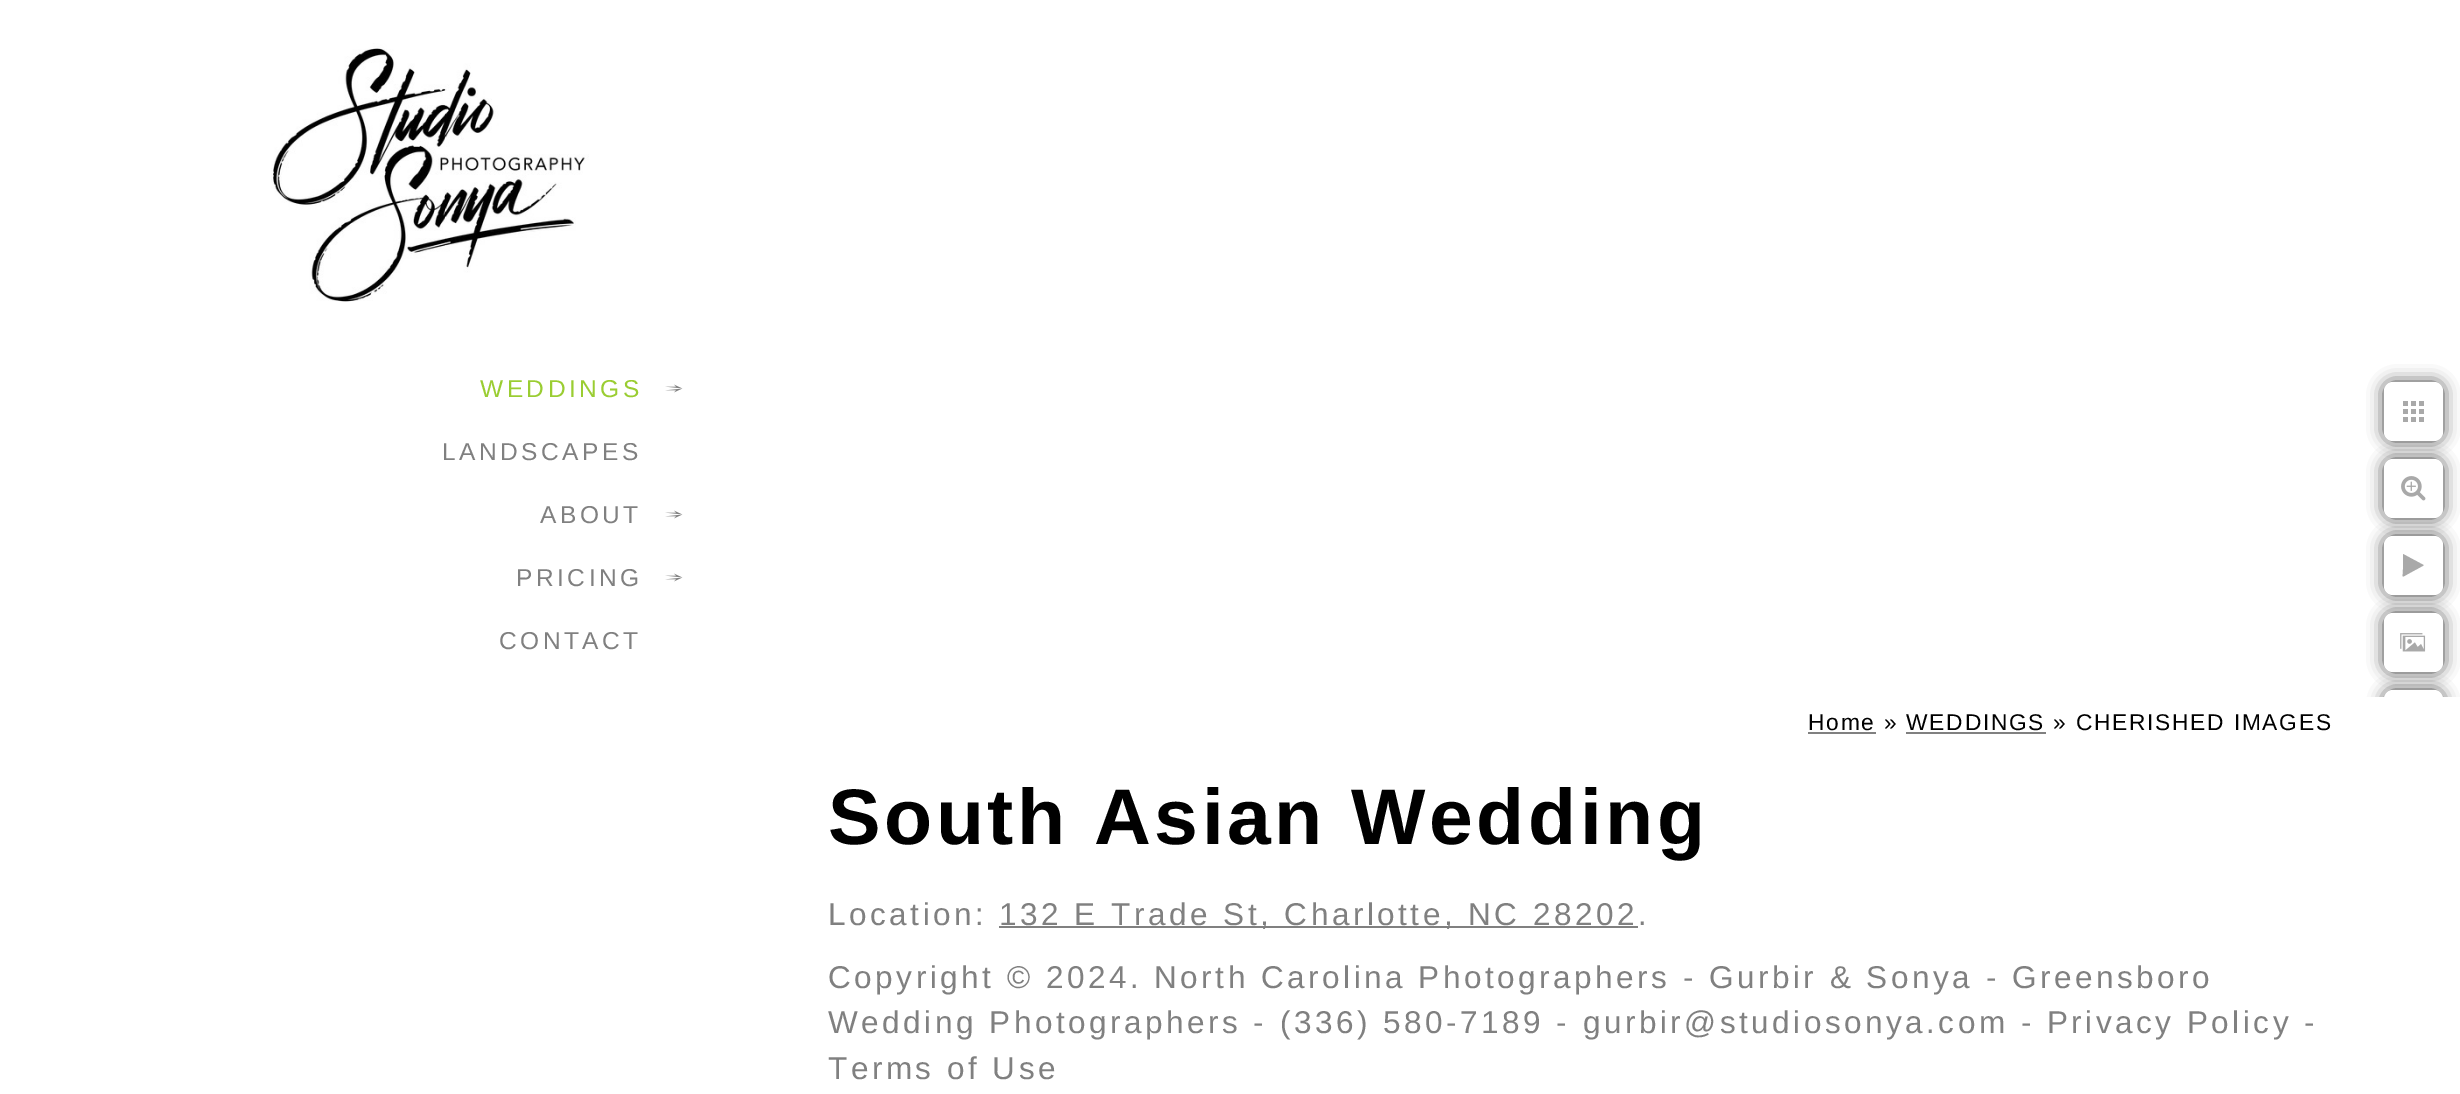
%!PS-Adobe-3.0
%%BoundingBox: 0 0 2460 1094
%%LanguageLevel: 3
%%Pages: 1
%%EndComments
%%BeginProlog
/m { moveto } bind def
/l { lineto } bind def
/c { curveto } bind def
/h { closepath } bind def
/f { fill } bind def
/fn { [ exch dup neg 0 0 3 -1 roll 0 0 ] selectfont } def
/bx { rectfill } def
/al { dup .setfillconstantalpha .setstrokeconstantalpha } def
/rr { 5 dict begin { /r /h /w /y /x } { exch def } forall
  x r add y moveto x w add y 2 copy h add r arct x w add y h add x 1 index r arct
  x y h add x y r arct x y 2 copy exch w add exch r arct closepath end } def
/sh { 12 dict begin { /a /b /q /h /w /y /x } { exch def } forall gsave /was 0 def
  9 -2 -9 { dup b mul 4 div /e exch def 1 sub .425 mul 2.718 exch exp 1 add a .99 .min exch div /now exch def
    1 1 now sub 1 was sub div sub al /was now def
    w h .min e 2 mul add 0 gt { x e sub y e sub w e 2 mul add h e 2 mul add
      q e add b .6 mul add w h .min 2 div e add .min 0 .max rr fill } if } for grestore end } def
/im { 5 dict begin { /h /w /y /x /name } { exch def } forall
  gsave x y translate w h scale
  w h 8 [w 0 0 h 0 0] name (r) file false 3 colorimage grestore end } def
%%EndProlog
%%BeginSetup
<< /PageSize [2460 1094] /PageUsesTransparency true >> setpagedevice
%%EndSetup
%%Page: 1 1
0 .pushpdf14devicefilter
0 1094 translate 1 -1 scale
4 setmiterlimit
1 setgray
0 0 2460 1094 bx
(image0.raw) 271 43 318 259 im
/LiberationSans-Regular 24.5 fn
0.604 0.804 0.196 setrgbcolor
480 397 m 3.5 0 (WEDDINGS) ashow
(image1.raw) 665 384 18 9 im
0.502 setgray
442 460 m 3.5 0 (LANDSCAPES) ashow
540 523 m 3.5 0 (ABOUT) ashow
(image1.raw) 665 510 18 9 im
516 586 m 3.5 0 (PRICING) ashow
(image1.raw) 665 573 18 9 im
499 649 m 3.5 0 (CONTACT) ashow
0 setgray
2384 382 59 59 9 8 0.75 sh
1 setgray
2384 382 59 59 9 rr f
(image2.raw) 2403 401 21 21 im
0 setgray
2384 459 59 59 9 8 0.75 sh
1 setgray
2384 459 59 59 9 rr f
(image3.raw) 2401 476 25 25 im
0 setgray
2384 536 59 59 9 8 0.75 sh
1 setgray
2384 536 59 59 9 rr f
0.663 setgray
2423.5 565.5 m 2407 574.5 l 2401 578 2403 577.5 2403 569 c 2403 554.5 l 2403 554 l 2423.5 565 l h f
0 setgray
2384 613 59 59 9 8 0.75 sh
1 setgray
2384 613 59 59 9 rr f
(image4.raw) 2400 633 26 19 im
0 setgray
2384 690 59 59 9 8 0.75 sh
1 setgray
2384 690 59 59 9 rr f
2366 697 94 70 bx
/LiberationSans-Regular 22.75 fn
0 setgray
1808 730 m 1.75 0 (Home » WEDDINGS » CHERISHED IMAGES) ashow
0.502 setgray
1808 732 68 2 bx
1906 732 140 2 bx
/LiberationSans-Bold 78.75 fn
0 setgray
828 844 m 3.5 0 (South Asian Wedding) ashow
/LiberationSans-Regular 31.5 fn
0.502 setgray
828 925 m 3.5 0 (Location:) ashow
999 926 639 2 bx
999 925 m 3.5 0 (132 E Trade St, Charlotte, NC 28202.) ashow
828 988 m 3.5 0 (Copyright © 2024. North Carolina Photographers - Gurbir & Sonya - Greensboro) ashow
828 1033 m 3.5 0 (Wedding Photographers - \(336\) 580-7189 - gurbir@studiosonya.com - Privacy Policy -) ashow
828 1079 m 3.5 0 (Terms of Use) ashow
.poppdf14devicefilter showpage
%%EOF
